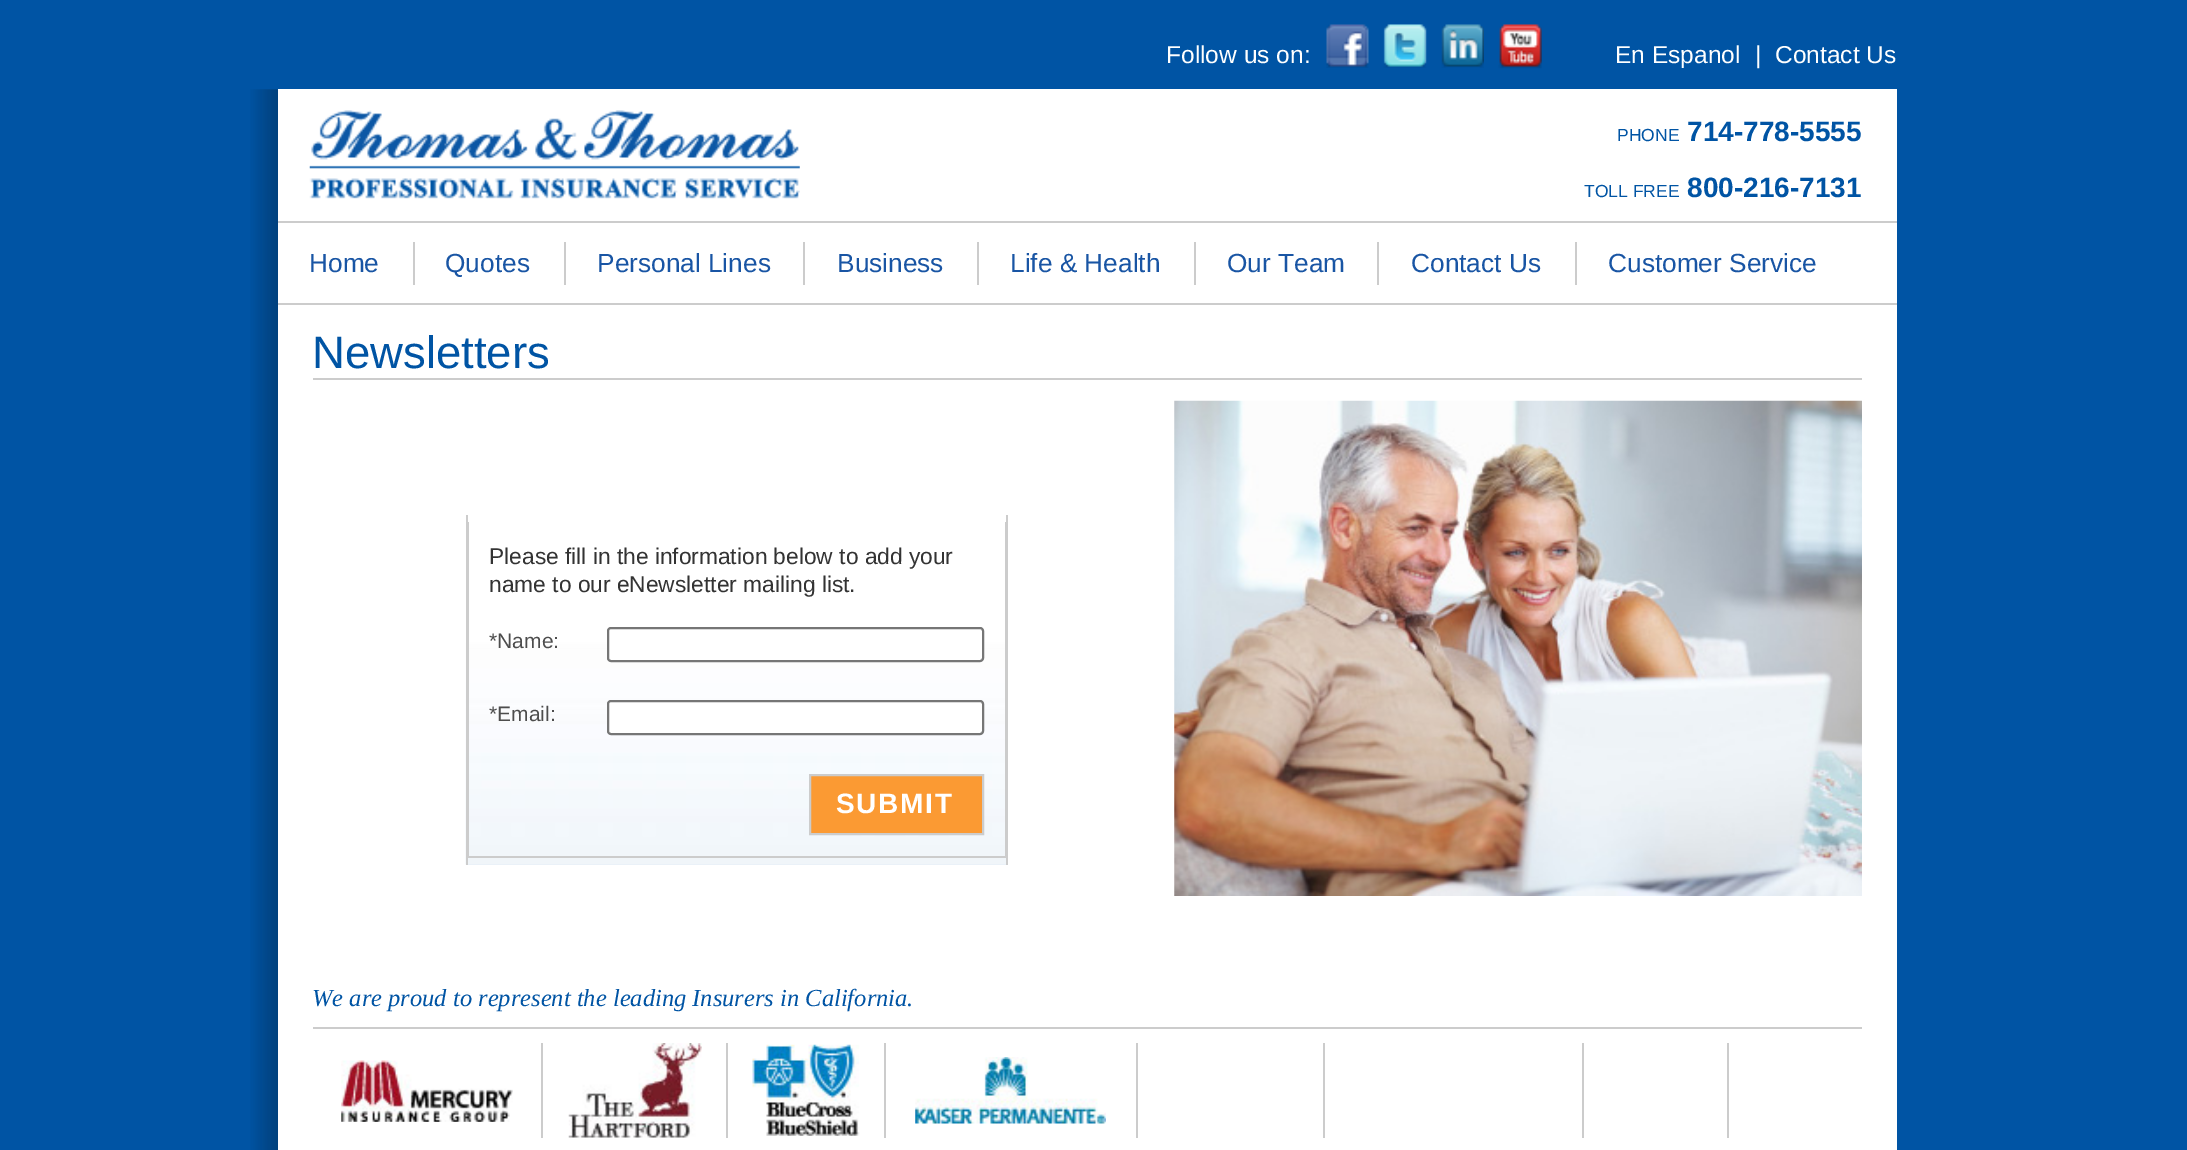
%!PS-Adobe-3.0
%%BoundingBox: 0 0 2187 1150
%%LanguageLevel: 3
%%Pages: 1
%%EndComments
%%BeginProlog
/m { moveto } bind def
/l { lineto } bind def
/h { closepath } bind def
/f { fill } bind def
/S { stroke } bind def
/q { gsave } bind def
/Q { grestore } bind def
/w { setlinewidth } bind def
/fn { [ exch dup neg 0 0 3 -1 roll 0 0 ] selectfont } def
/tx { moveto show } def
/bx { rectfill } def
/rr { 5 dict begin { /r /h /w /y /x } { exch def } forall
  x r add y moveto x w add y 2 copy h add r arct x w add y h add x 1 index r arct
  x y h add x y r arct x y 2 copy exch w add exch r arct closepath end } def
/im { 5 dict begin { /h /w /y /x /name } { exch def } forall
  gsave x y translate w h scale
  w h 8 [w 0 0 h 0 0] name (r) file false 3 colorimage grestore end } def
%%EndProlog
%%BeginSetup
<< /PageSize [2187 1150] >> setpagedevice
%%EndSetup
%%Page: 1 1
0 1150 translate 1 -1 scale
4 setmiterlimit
0 0.329 0.643 setrgbcolor
0 0 2187 1150 bx
/LiberationSans-Regular 24.5 fn
1 setgray
(Follow us on:) 1166 63 tx
(image0.raw) 1326 24 43 44 im
(image1.raw) 1383 24 44 44 im
(image2.raw) 1441 24 43 44 im
(image3.raw) 1498 24 44 45 im
(En Espanol) 1615 63 tx
(|) 1755 63 tx
(Contact Us) 1775 63 tx
(image4.raw) 250 89 28 1061 im
278 89 1619 1061 bx
(image5.raw) 309 110 491 89 im
/LiberationSans-Regular 17.5 fn
0 0.329 0.643 setrgbcolor
(PHONE) 1617 141 tx
/LiberationSans-Bold 28 fn
(714-778-5555) 1687 141 tx
/LiberationSans-Regular 17.5 fn
(TOLL FREE) 1584 197 tx
/LiberationSans-Bold 28 fn
(800-216-7131) 1687 197 tx
0.8 setgray
278 221 1619 2 bx
278 303 1619 2 bx
/LiberationSans-Regular 26.25 fn
0.098 0.333 0.643 setrgbcolor
(Home) 309 272 tx
0.8 setgray
413 242 2 43 bx
0.098 0.333 0.643 setrgbcolor
(Quotes) 445 272 tx
0.8 setgray
564 242 2 43 bx
0.098 0.333 0.643 setrgbcolor
(Personal Lines) 597 272 tx
0.8 setgray
803 242 2 43 bx
0.098 0.333 0.643 setrgbcolor
(Business) 837 272 tx
0.8 setgray
977 242 2 43 bx
0.098 0.333 0.643 setrgbcolor
(Life & Health) 1010 272 tx
0.8 setgray
1194 242 2 43 bx
0.098 0.333 0.643 setrgbcolor
(Our Team) 1227 272 tx
0.8 setgray
1377 242 2 43 bx
0.098 0.333 0.643 setrgbcolor
(Contact Us) 1411 272 tx
0.8 setgray
1575 242 2 43 bx
0.098 0.333 0.643 setrgbcolor
(Customer Service) 1608 272 tx
0.8 setgray
313 378 1549 2 bx
/LiberationSans-Regular 45.5 fn
0 0.329 0.643 setrgbcolor
(Newsletters) 312 368 tx
0.894 0.925 0.969 setrgbcolor
468 864 538 1 bx
(image6.raw) 465 515 541 350 im
0.8 setgray
1006 515 2 350 bx
466 515 2 350 bx
1005 522 1 336 bx
467 856 539 2 bx
468 522 1 336 bx
/LiberationSans-Regular 22.75 fn
0.2 setgray
(Please fill in the information below to add your) 489 564 tx
(name to our eNewsletter mailing list.) 489 592 tx
/LiberationSans-Regular 21 fn
0.302 setgray
(*Name:) 489 648 tx
1 setgray
608 628 375 33 3 rr q f Q
0.463 setgray
2 w
S
0.302 setgray
(*Email:) 489 721 tx
1 setgray
608 701 375 33 3 rr q f Q
0.463 setgray
S
0.984 0.604 0.2 setrgbcolor
810 775 m 983 775 l 983 834 l 810 834 l h q f Q
0.8 setgray
S
/LiberationSans-Bold 28 fn
1 setgray
836 813 m 1.75 0 (SUBMIT) ashow
(image7.raw) 1174 400 688 496 im
/LiberationSerif-Italic 24.5 fn
0 0.329 0.643 setrgbcolor
(We are proud to represent the leading Insurers in California.) 312 1006 tx
0.8 setgray
313 1027 1549 2 bx
541 1043 2 95 bx
(image8.raw) 341 1060 172 62 im
726 1043 2 95 bx
(image9.raw) 568 1043 134 95 im
884 1043 2 95 bx
(image10.raw) 752 1044 108 92 im
1136 1043 2 95 bx
(image11.raw) 915 1057 191 67 im
1323 1043 2 95 bx
1582 1043 2 95 bx
1727 1043 2 95 bx
showpage
%%EOF
